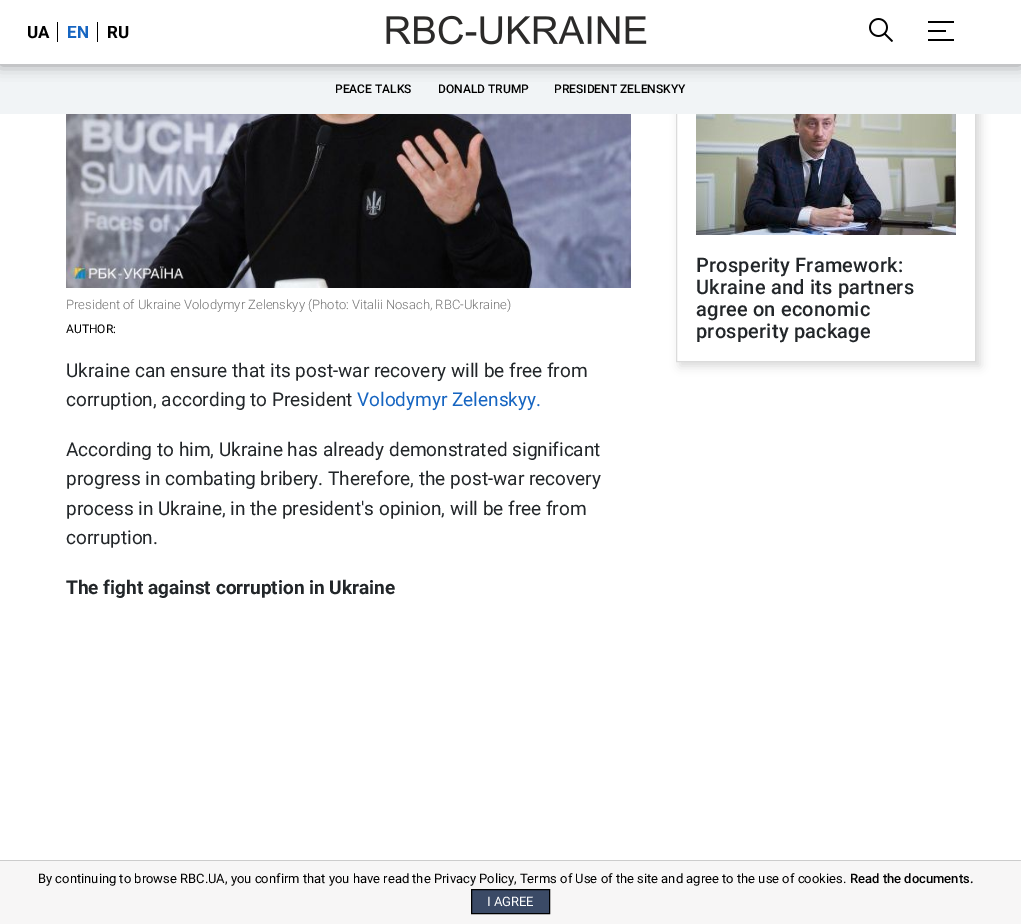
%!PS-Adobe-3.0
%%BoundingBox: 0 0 1021 924
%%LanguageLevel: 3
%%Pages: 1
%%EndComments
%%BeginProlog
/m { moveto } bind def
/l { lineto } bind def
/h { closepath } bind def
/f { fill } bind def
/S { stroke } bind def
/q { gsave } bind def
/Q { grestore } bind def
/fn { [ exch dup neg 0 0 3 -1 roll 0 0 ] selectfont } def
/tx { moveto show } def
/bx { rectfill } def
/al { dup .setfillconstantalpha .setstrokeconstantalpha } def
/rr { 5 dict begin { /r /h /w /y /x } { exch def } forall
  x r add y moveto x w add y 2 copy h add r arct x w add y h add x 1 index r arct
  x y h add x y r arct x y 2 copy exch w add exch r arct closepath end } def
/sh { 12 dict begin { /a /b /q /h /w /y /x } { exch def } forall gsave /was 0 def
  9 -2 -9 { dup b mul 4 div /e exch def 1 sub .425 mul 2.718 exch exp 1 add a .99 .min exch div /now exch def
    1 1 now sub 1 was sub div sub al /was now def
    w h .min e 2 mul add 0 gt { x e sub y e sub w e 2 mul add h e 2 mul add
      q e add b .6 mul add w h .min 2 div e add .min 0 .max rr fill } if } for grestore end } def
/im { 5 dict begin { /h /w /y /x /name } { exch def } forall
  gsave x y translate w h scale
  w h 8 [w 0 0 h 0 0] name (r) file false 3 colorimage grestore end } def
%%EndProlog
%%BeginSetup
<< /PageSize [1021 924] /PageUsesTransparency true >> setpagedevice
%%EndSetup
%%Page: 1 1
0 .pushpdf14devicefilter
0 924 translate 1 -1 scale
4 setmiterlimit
1 setgray
0 0 1021 924 bx
q
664 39 m 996 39 l 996 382 l 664 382 l h 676 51 m 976 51 l 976 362 l 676 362 l h eoclip newpath
0 setgray
680 55 300 311 0 5 0.15 sh
Q
0.859 setgray
676.5 51.5 299 310 rectstroke
0.945 0.957 0.965 setrgbcolor
0 64 1021 50 bx
0 setgray
0 1 1021 64 0 7.5 0.38 sh
1 setgray
0 0 1021 64 bx
/Roboto-Bold 17 fn
0 setgray
(UA) 27 38 tx
57 22 1 20 bx
0.086 0.396 0.757 setrgbcolor
(EN) 67 38 tx
0 setgray
97 22 1 20 bx
(RU) 107 38 tx
(image0.raw) 386 15 261 30 im
(image1.raw) 869 18 24 24 im
928 21 26 2 bx
928 30 18 2 bx
928 39 26 2 bx
/Roboto-Medium 12 fn
(PEACE TALKS) 335 93 tx
(DONALD TRUMP) 438 93 tx
(PRESIDENT ZELENSKYY) 554 93 tx
(image2.raw) 66 114 565 174 im
/Roboto-Light 13 fn
0.443 setgray
(President of Ukraine Volodymyr Zelenskyy \(Photo: Vitalii Nosach, RBC-Ukraine\)) 66 309 tx
/Roboto-Regular 12 fn
0 setgray
(AUTHOR:) 66 333 tx
/Roboto-Regular 19 fn
0.133 0.149 0.161 setrgbcolor
(Ukraine can ensure that its post-war recovery will be free from) 66 377 tx
(corruption, according to President) 66 406 tx
0.086 0.396 0.757 setrgbcolor
(Volodymyr Zelenskyy.) 357 406 tx
0.133 0.149 0.161 setrgbcolor
(According to him, Ukraine has already demonstrated significant) 66 456 tx
(progress in combating bribery. Therefore, the post-war recovery) 66 485 tx
(process in Ukraine, in the president's opinion, will be free from) 66 515 tx
(corruption.) 66 544 tx
/Roboto-Bold 19 fn
(The fight against corruption in Ukraine) 66 594 tx
(image3.raw) 696 114 260 121 im
/Roboto-Medium 20 fn
696 272 m 0.2 0 (Prosperity Framework:) ashow
696 294 m 0.2 0 (Ukraine and its partners) ashow
696 316 m 0.2 0 (agree on economic) ashow
696 338 m 0.2 0 (prosperity package) ashow
0.969 0.965 0.965 setrgbcolor
0 861 1021 63 bx
0.8 setgray
0 860 1021 1 bx
/Roboto-Regular 13 fn
0 setgray
(By continuing to browse RBC.UA, you confirm that you have read the Privacy Policy, Terms of Use of the site and agree to the use of cookies.) 38 883 tx
/Roboto-Medium 13 fn
(Read the documents.) 850 883 tx
0.231 0.29 0.4 setrgbcolor
471.5 889.5 m 549.5 889.5 l 549.5 913.5 l 471.5 913.5 l h q f Q
0 setgray
S
/Roboto-Regular 13 fn
1 setgray
(I AGREE) 487 906 tx
.poppdf14devicefilter showpage
%%EOF
